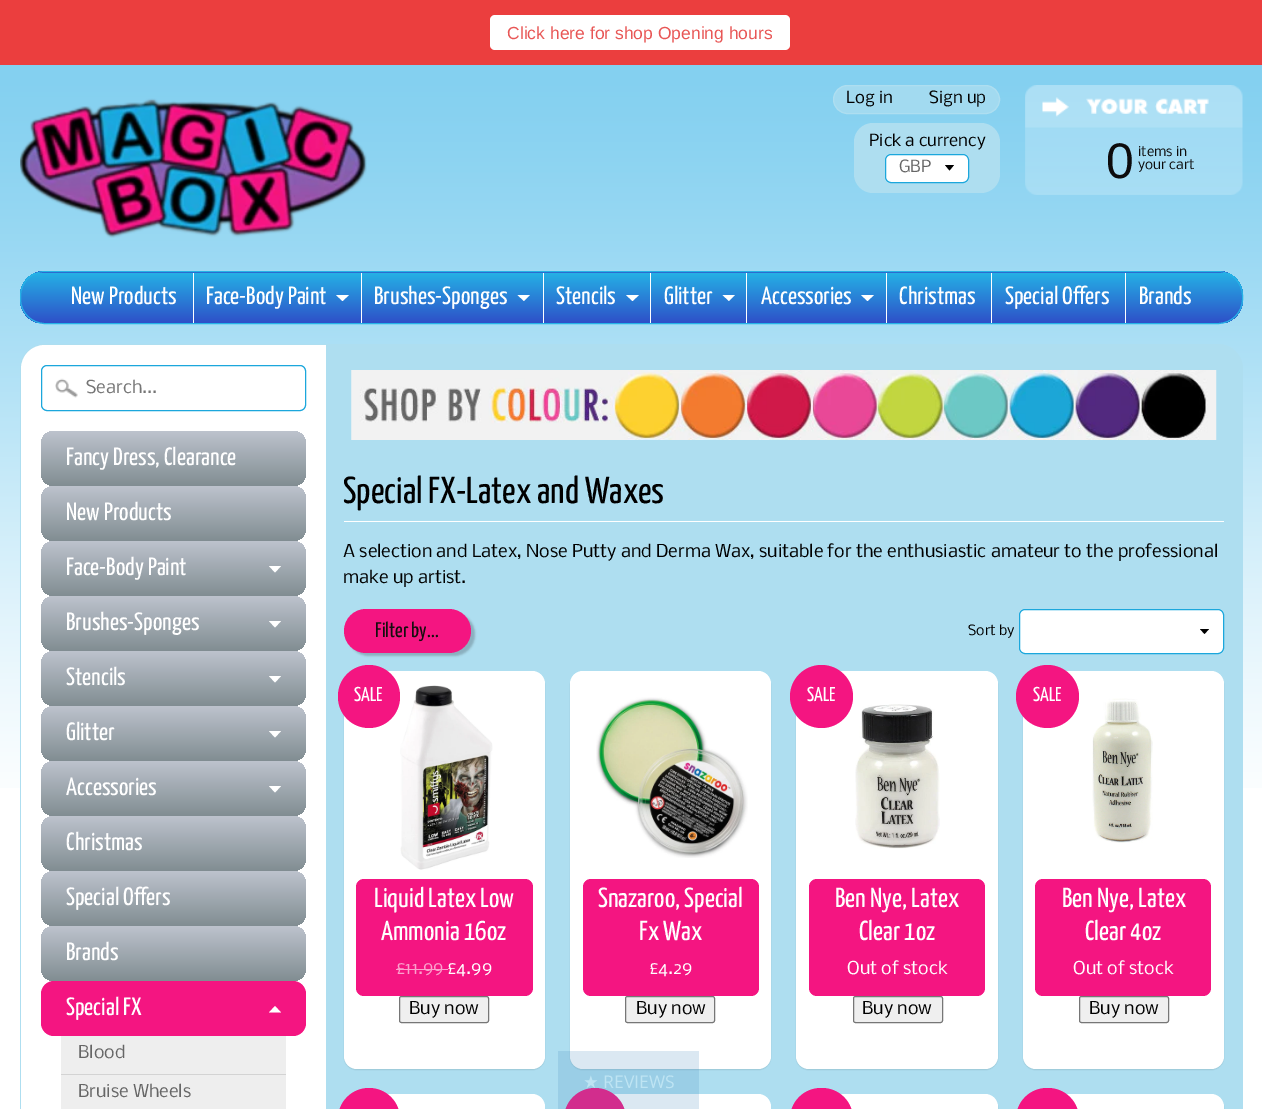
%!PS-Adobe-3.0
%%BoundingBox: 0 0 1262 1109
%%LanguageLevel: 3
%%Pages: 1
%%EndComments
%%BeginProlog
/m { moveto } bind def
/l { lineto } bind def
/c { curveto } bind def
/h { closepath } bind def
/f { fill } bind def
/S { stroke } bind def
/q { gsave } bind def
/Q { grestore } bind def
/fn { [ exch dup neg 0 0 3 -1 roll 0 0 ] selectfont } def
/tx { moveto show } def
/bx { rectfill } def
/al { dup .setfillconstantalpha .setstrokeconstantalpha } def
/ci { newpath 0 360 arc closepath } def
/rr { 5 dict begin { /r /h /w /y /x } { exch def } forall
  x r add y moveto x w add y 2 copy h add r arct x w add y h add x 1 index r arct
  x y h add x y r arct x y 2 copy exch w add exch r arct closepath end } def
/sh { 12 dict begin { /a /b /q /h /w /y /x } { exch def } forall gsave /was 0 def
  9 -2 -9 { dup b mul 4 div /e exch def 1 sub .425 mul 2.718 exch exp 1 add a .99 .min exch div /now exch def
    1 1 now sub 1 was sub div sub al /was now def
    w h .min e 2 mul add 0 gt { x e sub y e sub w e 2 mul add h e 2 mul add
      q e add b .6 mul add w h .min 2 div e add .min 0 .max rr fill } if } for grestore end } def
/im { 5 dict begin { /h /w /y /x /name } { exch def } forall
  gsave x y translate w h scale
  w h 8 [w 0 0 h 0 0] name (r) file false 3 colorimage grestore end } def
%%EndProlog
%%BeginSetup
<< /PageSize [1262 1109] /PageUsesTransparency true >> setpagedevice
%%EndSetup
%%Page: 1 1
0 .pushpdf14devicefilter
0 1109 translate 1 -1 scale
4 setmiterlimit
1 setgray
0 0 1262 1109 bx
(image0.raw) 0 65 1262 723 im
0.922 0.243 0.243 setrgbcolor
0 0 1262 65 bx
1 setgray
490 15 300 35 5 rr f
/LiberationSans-Regular 17.5 fn
0.91 0.341 0.337 setrgbcolor
(Click here for shop Opening hours) 507 39 tx
(image1.raw) 20 98 347 140 im
0.7 al
0.682 0.871 0.941 setrgbcolor
833.5 85.5 166 28 14 rr f
1 al
833.5 85.5 166 28 14 rr S
/Nobile-Regular 16 fn
0 setgray
(Log in) 846 103 tx
(Sign up) 929 103 tx
0.682 0.871 0.941 setrgbcolor
854 123 146 70 19 rr f
0 setgray
(Pick a currency) 869 146 tx
1 setgray
885 154 84 29 6 rr f
0 setgray
945 165 m 949.5 170.5 l 954 165 l h f
0.11 0.655 0.863 setrgbcolor
885.5 154.5 83 28 5.5 rr S
0.4 setgray
(GBP) 899 172 tx
(image2.raw) 1025 85 218 110 im
/LiberationSans-Regular 50 fn
0.051 0.047 0.051 setrgbcolor
(0) 1106 178 tx
/Nobile-Regular 13 fn
(items in) 1138 156 tx
(your cart) 1138 169 tx
q
20 271 1223 53 25 rr clip newpath
q 35 271 m 1228 271 l 1228 273 l 35 273 l h clip newpath
<< /ShadingType 2 /ColorSpace /DeviceRGB /Coords [631 222 631 273] /Extend [true true] /Function << /FunctionType 2 /Domain [0 1] /C0 [0.145 0.698 0.902] /C1 [0.18 0.314 0.784] /N 1 >> >> shfill Q
q 20 273 m 1243 273 l 1243 323 l 20 323 l h clip newpath
<< /ShadingType 2 /ColorSpace /DeviceRGB /Coords [631 272 631 323] /Extend [true true] /Function << /FunctionType 2 /Domain [0 1] /C0 [0.145 0.698 0.902] /C1 [0.18 0.314 0.784] /N 1 >> >> shfill Q
Q
0.145 0.698 0.902 setrgbcolor
20.5 271.5 1222 52 24.5 rr S
/YanoneKaffeesatz-ExtraLight 25 fn
1 setgray
(New Products) 71 304 tx
193 273 1 50 bx
(Face-Body Paint) 206 304 tx
336 295 m 349 295 l 342.5 301 l h f
361 273 1 50 bx
(Brushes-Sponges) 374 304 tx
517.5 295 m 530 295 l 524 301 l h f
543 273 1 50 bx
(Stencils) 556 304 tx
626 295 m 639 295 l 632.5 301 l h f
650 273 1 50 bx
(Glitter) 664 304 tx
722.5 295 m 735 295 l 729 301 l h f
746 273 1 50 bx
(Accessories) 761 304 tx
861 295 m 874 295 l 867.5 301 l h f
886 273 1 50 bx
(Christmas) 899 304 tx
991 273 1 50 bx
(Special Offers) 1005 304 tx
1125 273 1 50 bx
(Brands) 1139 304 tx
0.682 0.871 0.941 setrgbcolor
20 344 1223 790 25 rr f
1 setgray
45 345 m 326 345 l 326 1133 l 45 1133 l 31.5 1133 21 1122.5 21 1109 c 21 369 l 21 355.5 31.5 345 45 345 c h f
(image3.raw) 55 378 23 20 im
0.11 0.655 0.863 setrgbcolor
41.5 365.5 264 45 5.5 rr S
/Nobile-Regular 17 fn
0.459 setgray
(Search...) 86 393 tx
q 41 431 265 55 13 rr clip newpath
<< /ShadingType 2 /ColorSpace /DeviceRGB /Coords [174 431 174 486] /Extend [true true] /Function << /FunctionType 2 /Domain [0 1] /C0 [0.741 0.765 0.804] /C1 [0.506 0.553 0.573] /N 1 >> >> shfill Q
/YanoneKaffeesatz-ExtraLight 25 fn
1 setgray
(Fancy Dress, Clearance) 66 465 tx
q 41 486 265 55 13 rr clip newpath
<< /ShadingType 2 /ColorSpace /DeviceRGB /Coords [174 486 174 541] /Extend [true true] /Function << /FunctionType 2 /Domain [0 1] /C0 [0.741 0.765 0.804] /C1 [0.506 0.553 0.573] /N 1 >> >> shfill Q
(New Products) 66 520 tx
q 41 541 265 55 13 rr clip newpath
<< /ShadingType 2 /ColorSpace /DeviceRGB /Coords [174 541 174 596] /Extend [true true] /Function << /FunctionType 2 /Domain [0 1] /C0 [0.741 0.765 0.804] /C1 [0.506 0.553 0.573] /N 1 >> >> shfill Q
(Face-Body Paint) 66 575 tx
269 566 m 281 566 l 275 572.5 l h f
q 41 596 265 55 13 rr clip newpath
<< /ShadingType 2 /ColorSpace /DeviceRGB /Coords [174 596 174 651] /Extend [true true] /Function << /FunctionType 2 /Domain [0 1] /C0 [0.741 0.765 0.804] /C1 [0.506 0.553 0.573] /N 1 >> >> shfill Q
(Brushes-Sponges) 66 630 tx
269 621 m 281 621 l 275 627.5 l h f
q 41 651 265 55 13 rr clip newpath
<< /ShadingType 2 /ColorSpace /DeviceRGB /Coords [174 651 174 706] /Extend [true true] /Function << /FunctionType 2 /Domain [0 1] /C0 [0.741 0.765 0.804] /C1 [0.506 0.553 0.573] /N 1 >> >> shfill Q
(Stencils) 66 685 tx
269 676 m 281 676 l 275 682.5 l h f
q 41 706 265 55 13 rr clip newpath
<< /ShadingType 2 /ColorSpace /DeviceRGB /Coords [174 706 174 761] /Extend [true true] /Function << /FunctionType 2 /Domain [0 1] /C0 [0.741 0.765 0.804] /C1 [0.506 0.553 0.573] /N 1 >> >> shfill Q
(Glitter) 66 740 tx
269 731 m 281 731 l 275 737.5 l h f
q 41 761 265 55 13 rr clip newpath
<< /ShadingType 2 /ColorSpace /DeviceRGB /Coords [174 761 174 816] /Extend [true true] /Function << /FunctionType 2 /Domain [0 1] /C0 [0.741 0.765 0.804] /C1 [0.506 0.553 0.573] /N 1 >> >> shfill Q
(Accessories) 66 795 tx
269 786 m 281 786 l 275 792.5 l h f
q 41 816 265 55 13 rr clip newpath
<< /ShadingType 2 /ColorSpace /DeviceRGB /Coords [174 816 174 871] /Extend [true true] /Function << /FunctionType 2 /Domain [0 1] /C0 [0.741 0.765 0.804] /C1 [0.506 0.553 0.573] /N 1 >> >> shfill Q
(Christmas) 66 850 tx
q 41 871 265 55 13 rr clip newpath
<< /ShadingType 2 /ColorSpace /DeviceRGB /Coords [174 871 174 926] /Extend [true true] /Function << /FunctionType 2 /Domain [0 1] /C0 [0.741 0.765 0.804] /C1 [0.506 0.553 0.573] /N 1 >> >> shfill Q
(Special Offers) 66 905 tx
q 41 926 265 55 13 rr clip newpath
<< /ShadingType 2 /ColorSpace /DeviceRGB /Coords [174 926 174 981] /Extend [true true] /Function << /FunctionType 2 /Domain [0 1] /C0 [0.741 0.765 0.804] /C1 [0.506 0.553 0.573] /N 1 >> >> shfill Q
(Brands) 66 960 tx
0.957 0.082 0.506 setrgbcolor
41 981 265 55 13 rr f
1 setgray
(Special FX) 66 1015 tx
281 1012.5 m 269 1012.5 l 275 1006 l h f
0.933 setgray
61 1036 225 73 bx
0.827 setgray
61 1074 225 1 bx
/Nobile-Regular 17 fn
0.4 setgray
(Blood) 78 1058 tx
(Bruise Wheels) 78 1097 tx
(image4.raw) 351 370 866 70 im
1 setgray
344 521 880 1 bx
/YanoneKaffeesatz-ExtraLight 37.5 fn
0 setgray
(Special FX-Latex and Waxes) 343 503 tx
/Nobile-Regular 17 fn
(A selection and Latex, Nose Putty and Derma Wax, suitable for the enthusiastic amateur to the professional) 343 557 tx
(make up artist.) 343 583 tx
348 613 127 43 21.5 1 0.2 sh
0.957 0.082 0.506 setrgbcolor
344 609 127 44 22 rr f
/YanoneKaffeesatz-ExtraLight 21 fn
0.078 0.055 0.055 setrgbcolor
(Filter by...) 375 637 tx
/Nobile-Regular 13.5 fn
0 setgray
(Sort by) 968 635 tx
1 setgray
1019 609 205 45 6 rr f
0 setgray
1200 629 m 1204.5 634 l 1209 629 l h f
0.11 0.655 0.863 setrgbcolor
1019.5 609.5 204 44 5.5 rr S
0 setgray
344 673 201 397 13 0.5 0.1 sh
1 setgray
344 671 201 398 13 rr f
0.957 0.082 0.506 setrgbcolor
338 665 62 63 31 rr f
/YanoneKaffeesatz-ExtraLight 20 fn
1 setgray
(SALE) 354 701 tx
(image5.raw) 400 685 93 185 im
0.957 0.082 0.506 setrgbcolor
356 879 177 117 8 rr f
/YanoneKaffeesatz-ExtraLight 27.5 fn
1 setgray
(Liquid Latex Low) 374 907 tx
(Ammonia 16oz) 381 940 tx
/Nobile-Regular 17 fn
0.984 0.631 0.804 setrgbcolor
(£11.99) 396 974 tx
396 969 52 1 bx
1 setgray
(£4.99) 447 974 tx
0.937 setgray
399.5 996.5 89 26 2 rr q f Q
0.463 setgray
S
0 setgray
(Buy now) 409 1014 tx
570 673 201 397 13 0.5 0.1 sh
1 setgray
570 671 201 398 13 rr f
(image6.raw) 596 697 152 161 im
0.957 0.082 0.506 setrgbcolor
583 879 176 117 8 rr f
/YanoneKaffeesatz-ExtraLight 27.5 fn
1 setgray
(Snazaroo, Special) 598 907 tx
(Fx Wax) 639 940 tx
/Nobile-Regular 17 fn
(£4.29) 649 974 tx
0.937 setgray
625.5 996.5 89 26 2 rr q f Q
0.463 setgray
S
0 setgray
(Buy now) 636 1014 tx
796 673 202 397 13 0.5 0.1 sh
1 setgray
796 671 202 398 13 rr f
0.957 0.082 0.506 setrgbcolor
821.5 696.5 31.5 ci f
/YanoneKaffeesatz-ExtraLight 20 fn
1 setgray
(SALE) 807 701 tx
(image7.raw) 855 704 85 145 im
0.957 0.082 0.506 setrgbcolor
809 879 176 117 8 rr f
/YanoneKaffeesatz-ExtraLight 27.5 fn
1 setgray
(Ben Nye, Latex) 835 907 tx
(Clear 1oz) 859 940 tx
/Nobile-Regular 17 fn
(Out of stock) 847 974 tx
0.937 setgray
853.5 996.5 89 26 2 rr q f Q
0.463 setgray
S
0 setgray
(Buy now) 862 1014 tx
1023 673 201 397 13 0.5 0.1 sh
1 setgray
1023 671 201 398 13 rr f
0.957 0.082 0.506 setrgbcolor
1047.5 696.5 31.5 ci f
/YanoneKaffeesatz-ExtraLight 20 fn
1 setgray
(SALE) 1033 701 tx
(image8.raw) 1092 698 61 145 im
0.957 0.082 0.506 setrgbcolor
1035 879 176 117 8 rr f
/YanoneKaffeesatz-ExtraLight 27.5 fn
1 setgray
(Ben Nye, Latex) 1062 907 tx
(Clear 4oz) 1085 940 tx
/Nobile-Regular 17 fn
(Out of stock) 1073 974 tx
0.937 setgray
1079.5 996.5 89 26 2 rr q f Q
0.463 setgray
S
0 setgray
(Buy now) 1089 1014 tx
1 setgray
344 1094 201 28 13 rr f
0.957 0.082 0.506 setrgbcolor
338 1088 62 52 31 rr f
1 setgray
570 1094 201 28 13 rr f
0.957 0.082 0.506 setrgbcolor
564 1088 62 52 31 rr f
0 setgray
796 1095 202 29 13 0.5 0.1 sh
1 setgray
796 1094 202 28 13 rr f
0.957 0.082 0.506 setrgbcolor
790 1088 63 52 31 rr f
0 setgray
1023 1095 201 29 13 0.5 0.1 sh
1 setgray
1023 1094 201 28 13 rr f
0.957 0.082 0.506 setrgbcolor
1016 1088 63 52 31 rr f
0.2 al
0.286 0.549 0.737 setrgbcolor
558 1051 141 58 bx
/DejaVuSans-Regular 17.5 fn
1 al
0.745 0.894 0.953 setrgbcolor
(★) 583 1088 tx
/OpenSans-Regular 17.5 fn
(REVIEWS) 603 1088 tx
.poppdf14devicefilter showpage
%%EOF
